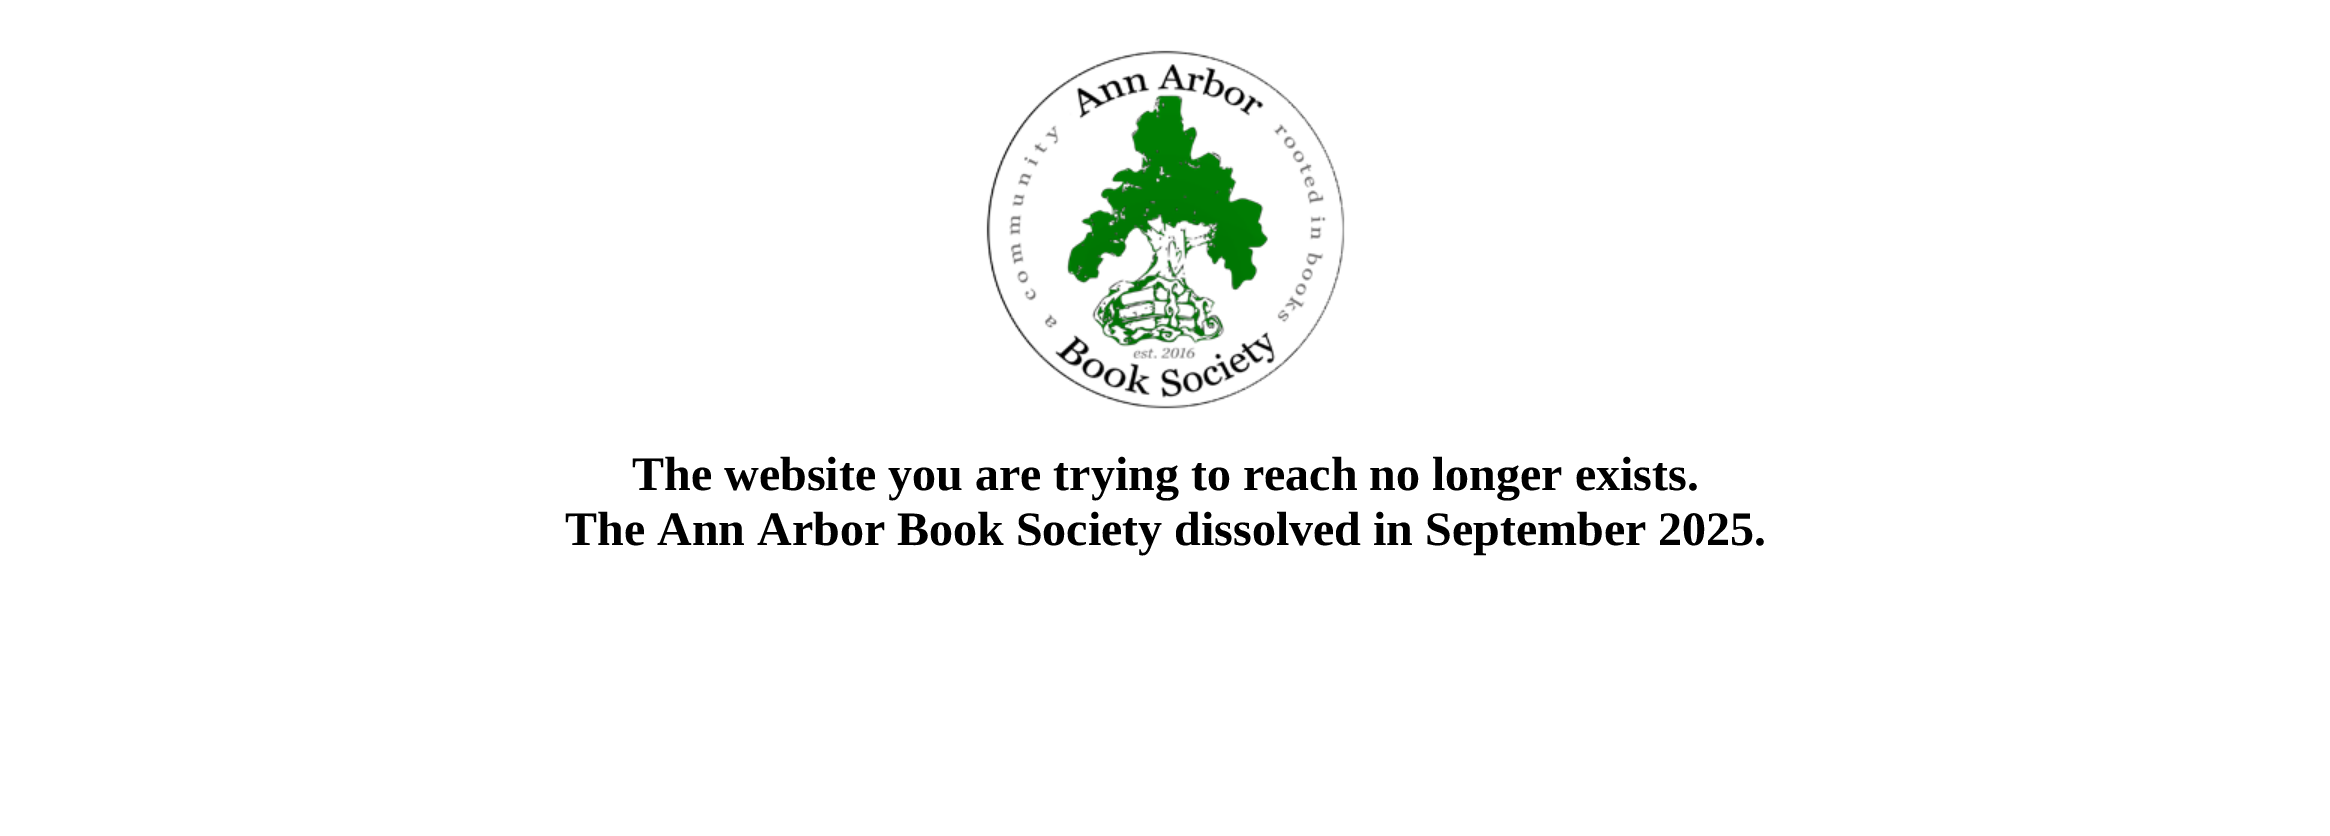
%!PS-Adobe-3.0
%%BoundingBox: 0 0 2330 836
%%LanguageLevel: 3
%%Pages: 1
%%EndComments
%%BeginProlog
/fn { [ exch dup neg 0 0 3 -1 roll 0 0 ] selectfont } def
/tx { moveto show } def
/bx { rectfill } def
/im { 5 dict begin { /h /w /y /x /name } { exch def } forall
  gsave x y translate w h scale
  w h 8 [w 0 0 h 0 0] name (r) file false 3 colorimage grestore end } def
%%EndProlog
%%BeginSetup
<< /PageSize [2330 836] >> setpagedevice
%%EndSetup
%%Page: 1 1
0 836 translate 1 -1 scale
4 setmiterlimit
1 setgray
0 0 2330 836 bx
(image0.raw) 986 50 359 359 im
/LiberationSerif-Bold 48 fn
0 setgray
(The website you are trying to reach no longer exists.) 632 490 tx
(The Ann Arbor Book Society dissolved in September 2025.) 565 545 tx
showpage
%%EOF
